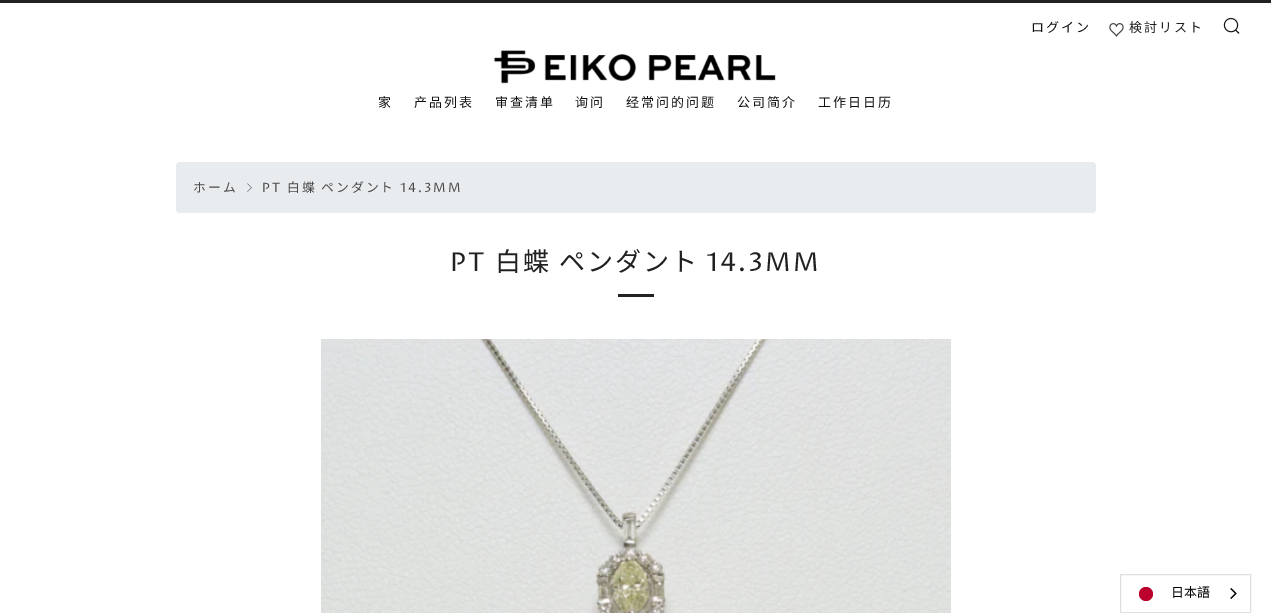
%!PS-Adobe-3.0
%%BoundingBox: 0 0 1271 613
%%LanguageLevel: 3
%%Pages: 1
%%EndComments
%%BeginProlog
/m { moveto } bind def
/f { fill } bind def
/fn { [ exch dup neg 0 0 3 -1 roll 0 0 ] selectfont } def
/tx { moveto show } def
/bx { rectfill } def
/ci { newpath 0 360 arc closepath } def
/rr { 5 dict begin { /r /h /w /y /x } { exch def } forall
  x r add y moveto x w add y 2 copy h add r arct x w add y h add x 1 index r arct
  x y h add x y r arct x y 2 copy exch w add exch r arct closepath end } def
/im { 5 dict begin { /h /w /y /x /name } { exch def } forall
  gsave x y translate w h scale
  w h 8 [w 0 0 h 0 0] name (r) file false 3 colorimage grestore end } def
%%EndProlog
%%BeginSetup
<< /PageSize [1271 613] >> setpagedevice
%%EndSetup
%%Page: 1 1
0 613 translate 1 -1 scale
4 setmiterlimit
1 setgray
0 0 1271 613 bx
0.129 setgray
0 0 1271 3 bx
/NotoSansCJKSC-Regular 13 fn
0.067 setgray
1031 32 m 2 0 (ログイン) ashow
(image0.raw) 1109 23 15 14 im
0.129 setgray
1129 32 m 2 0 (検討リスト) ashow
(image1.raw) 1223 17 17 17 im
0.067 setgray
378 107 m 2 0 (家) ashow
414 107 m 2 0 (产品列表) ashow
495 107 m 2 0 (审查清单) ashow
575 107 m 2 0 (询问) ashow
626 107 m 2 0 (经常问的问题) ashow
737 107 m 2 0 (公司简介) ashow
818 107 m 2 0 (工作日日历) ashow
(image2.raw) 494 50 282 34 im
0.914 0.925 0.937 setrgbcolor
176 162 920 51 4 rr f
/NotoSansCJKSC-Regular 12.75 fn
0.286 0.29 0.29 setrgbcolor
193 192 m 2 0 (ホーム) ashow
(image3.raw) 247 183 5 9 im
/ProzaLibre-Regular 12.75 fn
262 192 m 2 0 (PT) ashow
/NotoSansCJKSC-Regular 12.75 fn
287 192 m 2 0 (白蝶 ペンダント) ashow
/ProzaLibre-Regular 12.75 fn
400 192 m 2 0 (14.3MM) ashow
/ProzaLibre-Regular 26 fn
0.129 setgray
450 271 m 2 0 (PT) ashow
/NotoSansCJKSC-Regular 26 fn
495 271 m 2 0 (白蝶 ペンダント) ashow
/ProzaLibre-Regular 26 fn
706 271 m 2 0 (14.3MM) ashow
618 294 36 3 bx
0.863 0.863 0.855 setrgbcolor
321 339 630 274 bx
(image4.raw) 321 339 630 274 im
0.878 setgray
1120.5 574.5 130 38 rectstroke
0.737 0 0.176 setrgbcolor
1146 594 7 ci f
/NotoSansCJKSC-Regular 13 fn
0 setgray
(日本語) 1171 597 tx
(image5.raw) 1230 588 7 11 im
showpage
%%EOF
